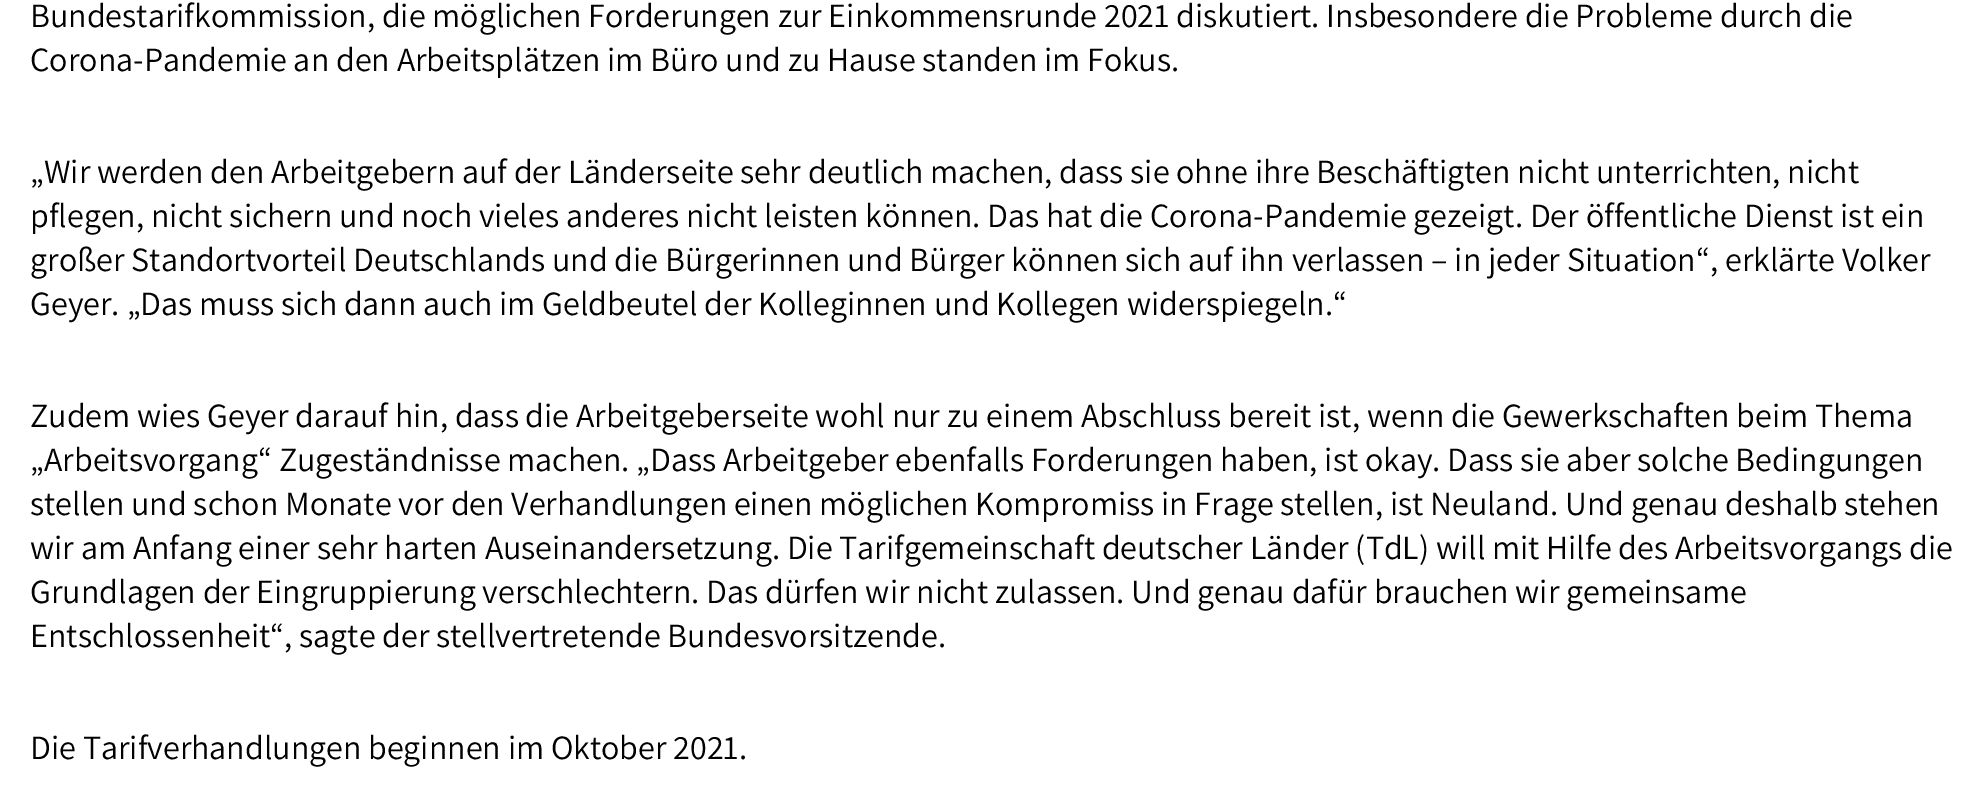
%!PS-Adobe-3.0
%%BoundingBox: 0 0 1988 801
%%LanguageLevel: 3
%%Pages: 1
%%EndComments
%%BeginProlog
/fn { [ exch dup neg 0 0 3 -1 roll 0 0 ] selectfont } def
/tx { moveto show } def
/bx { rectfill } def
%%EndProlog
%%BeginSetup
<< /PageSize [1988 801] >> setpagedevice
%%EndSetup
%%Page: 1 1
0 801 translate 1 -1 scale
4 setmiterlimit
1 setgray
0 0 1988 801 bx
/Assistant-Regular 34 fn
0 setgray
(Bundestarifkommission, die möglichen Forderungen zur Einkommensrunde 2021 diskutiert. Insbesondere die Probleme durch die) 30 27 tx
(Corona-Pandemie an den Arbeitsplätzen im Büro und zu Hause standen im Fokus.) 30 71 tx
(„Wir werden den Arbeitgebern auf der Länderseite sehr deutlich machen, dass sie ohne ihre Beschäftigten nicht unterrichten, nicht) 30 183 tx
(pflegen, nicht sichern und noch vieles anderes nicht leisten können. Das hat die Corona-Pandemie gezeigt. Der öffentliche Dienst ist ein) 30 227 tx
(großer Standortvorteil Deutschlands und die Bürgerinnen und Bürger können sich auf ihn verlassen – in jeder Situation“, erklärte Volker) 30 271 tx
(Geyer. „Das muss sich dann auch im Geldbeutel der Kolleginnen und Kollegen widerspiegeln.“) 30 315 tx
(Zudem wies Geyer darauf hin, dass die Arbeitgeberseite wohl nur zu einem Abschluss bereit ist, wenn die Gewerkschaften beim Thema) 30 427 tx
(„Arbeitsvorgang“ Zugeständnisse machen. „Dass Arbeitgeber ebenfalls Forderungen haben, ist okay. Dass sie aber solche Bedingungen) 30 471 tx
(stellen und schon Monate vor den Verhandlungen einen möglichen Kompromiss in Frage stellen, ist Neuland. Und genau deshalb stehen) 30 515 tx
(wir am Anfang einer sehr harten Auseinandersetzung. Die Tarifgemeinschaft deutscher Länder \(TdL\) will mit Hilfe des Arbeitsvorgangs die) 30 559 tx
(Grundlagen der Eingruppierung verschlechtern. Das dürfen wir nicht zulassen. Und genau dafür brauchen wir gemeinsame) 30 603 tx
(Entschlossenheit“, sagte der stellvertretende Bundesvorsitzende.) 30 647 tx
(Die Tarifverhandlungen beginnen im Oktober 2021.) 30 759 tx
showpage
%%EOF
